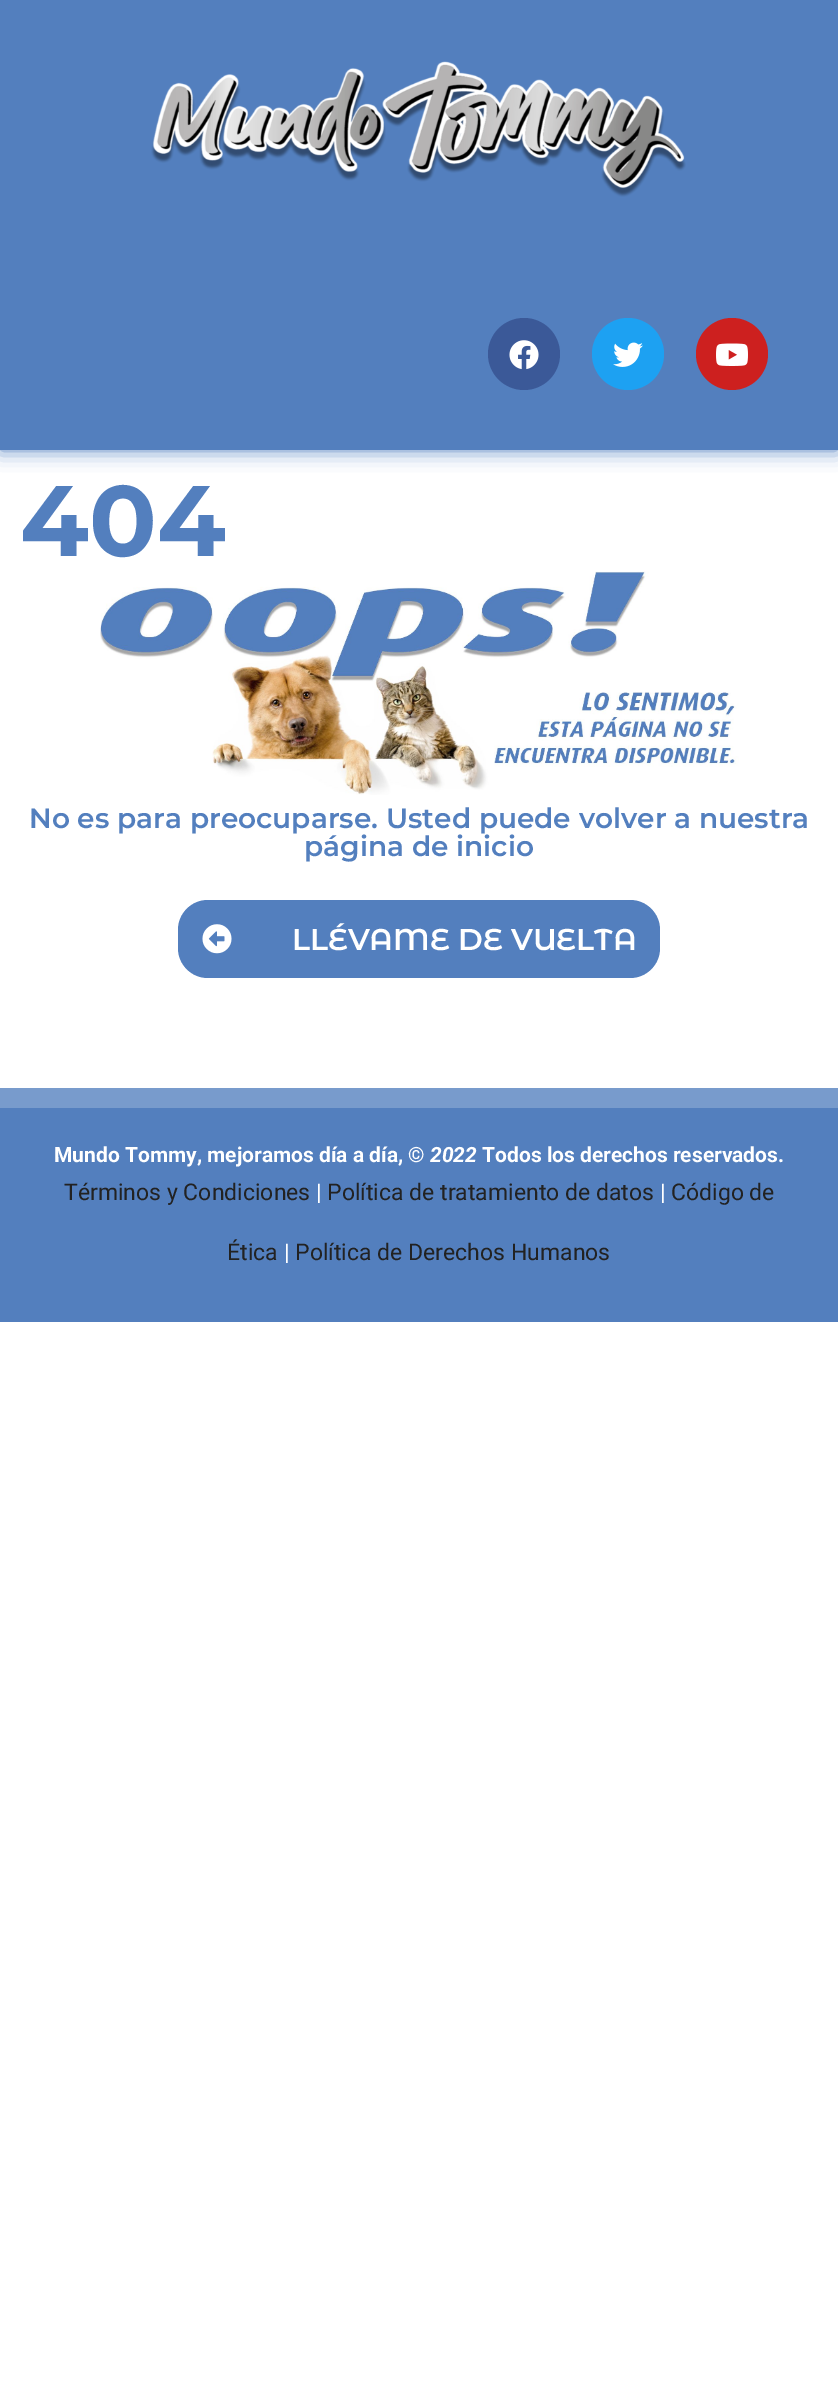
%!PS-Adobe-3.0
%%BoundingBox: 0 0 838 2404
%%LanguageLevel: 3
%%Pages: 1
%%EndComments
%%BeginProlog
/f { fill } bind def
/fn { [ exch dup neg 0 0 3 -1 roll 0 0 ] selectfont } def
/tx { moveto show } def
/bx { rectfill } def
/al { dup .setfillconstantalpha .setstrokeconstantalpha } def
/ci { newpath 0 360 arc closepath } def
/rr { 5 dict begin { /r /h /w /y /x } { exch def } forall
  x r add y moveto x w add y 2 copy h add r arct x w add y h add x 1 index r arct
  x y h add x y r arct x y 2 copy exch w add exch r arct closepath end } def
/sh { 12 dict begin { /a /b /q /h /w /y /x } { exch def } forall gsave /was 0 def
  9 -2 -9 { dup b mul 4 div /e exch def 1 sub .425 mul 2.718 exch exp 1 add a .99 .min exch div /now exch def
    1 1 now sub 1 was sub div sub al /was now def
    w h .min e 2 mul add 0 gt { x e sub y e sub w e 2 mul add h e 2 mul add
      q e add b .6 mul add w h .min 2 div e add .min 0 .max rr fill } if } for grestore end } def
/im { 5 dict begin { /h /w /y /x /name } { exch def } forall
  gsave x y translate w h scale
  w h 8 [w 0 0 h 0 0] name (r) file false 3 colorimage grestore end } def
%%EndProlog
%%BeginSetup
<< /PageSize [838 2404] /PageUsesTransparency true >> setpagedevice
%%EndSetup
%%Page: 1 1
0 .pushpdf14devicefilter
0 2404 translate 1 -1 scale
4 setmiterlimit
1 setgray
0 0 838 2404 bx
0.325 0.498 0.745 setrgbcolor
0 0 838 450 0 10 1 sh
0 0 838 450 bx
(image0.raw) 151 61 535 136 im
0.231 0.349 0.596 setrgbcolor
524 354 36 ci f
(image1.raw) 509 340 30 30 im
0.114 0.631 0.949 setrgbcolor
628 354 36 ci f
(image2.raw) 613 342 30 25 im
0.804 0.125 0.122 setrgbcolor
732 354 36 ci f
(image3.raw) 716 343 32 23 im
/Montserrat-Bold 100 fn
0.325 0.498 0.745 setrgbcolor
(404) 20 556 tx
(image4.raw) 100 571 639 224 im
/Montserrat-SemiBold 28 fn
(No es para preocuparse. Usted puede volver a nuestra) 29 828 tx
(página de inicio) 304 856 tx
178 900 482 78 30 rr f
(image5.raw) 202 924 30 30 im
/MontserratAlternates-SemiBold 30 fn
1 setgray
(LLÉVAME DE VUELTA) 292 950 tx
0.325 0.498 0.745 setrgbcolor
0 1108 838 214 bx
0.471 0.608 0.8 setrgbcolor
0 1088 838 20 bx
/Roboto-Bold 21 fn
1 setgray
(Mundo Tommy, mejoramos día a día, ©) 54 1162 tx
/Roboto-BoldItalic 21 fn
(2022) 430 1162 tx
/Roboto-Bold 21 fn
(Todos los derechos reservados.) 482 1162 tx
/Roboto-Regular 23 fn
0.133 setgray
(Términos y Condiciones) 64 1200 tx
1 setgray
(|) 316 1200 tx
0.133 setgray
(Política de tratamiento de datos) 327 1200 tx
1 setgray
(|) 660 1200 tx
0.133 setgray
(Código de) 671 1200 tx
(Ética) 227 1260 tx
1 setgray
(|) 284 1260 tx
0.133 setgray
(Política de Derechos Humanos) 295 1260 tx
.poppdf14devicefilter showpage
%%EOF
